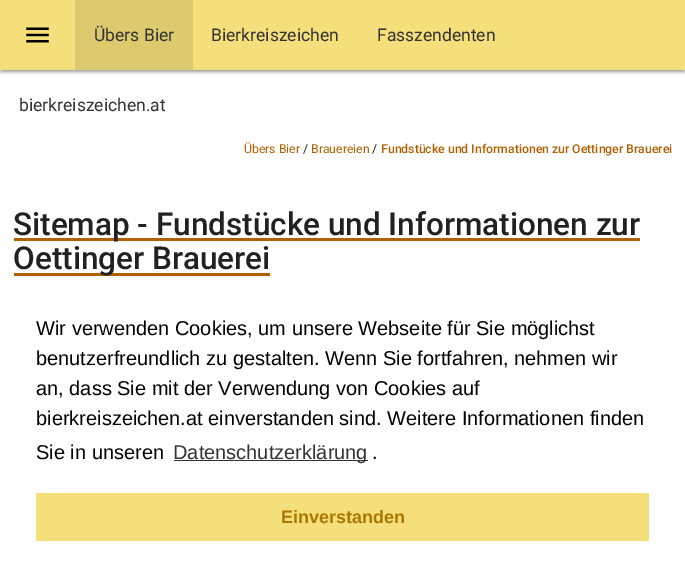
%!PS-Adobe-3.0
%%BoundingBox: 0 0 685 561
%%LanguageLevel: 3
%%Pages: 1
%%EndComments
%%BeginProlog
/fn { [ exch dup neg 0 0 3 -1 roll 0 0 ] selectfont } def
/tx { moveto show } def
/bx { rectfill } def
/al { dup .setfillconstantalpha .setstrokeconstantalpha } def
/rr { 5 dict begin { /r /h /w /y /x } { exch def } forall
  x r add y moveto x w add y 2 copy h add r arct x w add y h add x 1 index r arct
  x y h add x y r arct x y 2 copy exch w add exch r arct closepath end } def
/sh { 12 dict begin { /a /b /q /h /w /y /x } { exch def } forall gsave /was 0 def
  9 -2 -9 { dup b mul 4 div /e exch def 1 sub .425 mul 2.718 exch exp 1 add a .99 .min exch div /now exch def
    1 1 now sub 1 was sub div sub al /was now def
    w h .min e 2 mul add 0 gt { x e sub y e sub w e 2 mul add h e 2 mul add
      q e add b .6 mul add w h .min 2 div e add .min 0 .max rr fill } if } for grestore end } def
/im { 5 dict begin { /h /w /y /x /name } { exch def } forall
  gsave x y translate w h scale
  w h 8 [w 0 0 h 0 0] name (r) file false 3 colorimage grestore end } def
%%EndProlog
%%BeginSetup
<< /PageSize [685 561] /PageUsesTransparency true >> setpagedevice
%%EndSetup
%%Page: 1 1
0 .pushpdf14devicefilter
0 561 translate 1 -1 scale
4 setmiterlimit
1 setgray
0 0 685 561 bx
0 setgray
0 1 685 70 0 3 0.2 sh
3 6 680 65 0 0.5 0.12 sh
0 3 685 70 0 1 0.14 sh
0.961 0.875 0.478 setrgbcolor
0 0 685 70 bx
0.867 0.788 0.431 setrgbcolor
75 0 118 70 bx
/Roboto-Regular 17.5 fn
0.2 setgray
(Übers Bier) 94 41 tx
(Bierkreiszeichen) 211 41 tx
(Fasszendenten) 377 41 tx
(bierkreiszeichen.at) 19 111 tx
(image0.raw) 26 27 23 16 im
/Roboto-Regular 12.25 fn
0.702 0.376 0.008 setrgbcolor
(Übers Bier) 244 153 tx
0.129 setgray
(/) 303 153 tx
0.702 0.376 0.008 setrgbcolor
(Brauereien) 311 153 tx
0.129 setgray
(/) 372 153 tx
/Roboto-Medium 12.25 fn
0.702 0.376 0.008 setrgbcolor
(Fundstücke und Informationen zur Oettinger Brauerei) 381 153 tx
14 238 626 3 bx
/Roboto-Medium 31.5 fn
0.129 setgray
(Sitemap - Fundstücke und Informationen zur) 13 235 tx
0.702 0.376 0.008 setrgbcolor
14 273 256 3 bx
0.129 setgray
(Oettinger Brauerei) 13 269 tx
/LiberationSans-Regular 20 fn
0 setgray
(Wir verwenden Cookies, um unsere Webseite für Sie möglichst) 36 335 tx
(benutzerfreundlich zu gestalten. Wenn Sie fortfahren, nehmen wir) 36 365 tx
(an, dass Sie mit der Verwendung von Cookies auf) 36 395 tx
(bierkreiszeichen.at einverstanden sind. Weitere Informationen finden) 36 425 tx
(Sie in unseren) 36 459 tx
0.2 setgray
174 460 194 1 bx
(Datenschutzerklärung) 173 459 tx
0 setgray
(.) 372 459 tx
0.961 0.875 0.478 setrgbcolor
36 493 613 48 bx
/LiberationSans-Bold 18 fn
0.667 0.467 0 setrgbcolor
(Einverstanden) 281 523 tx
.poppdf14devicefilter showpage
%%EOF
